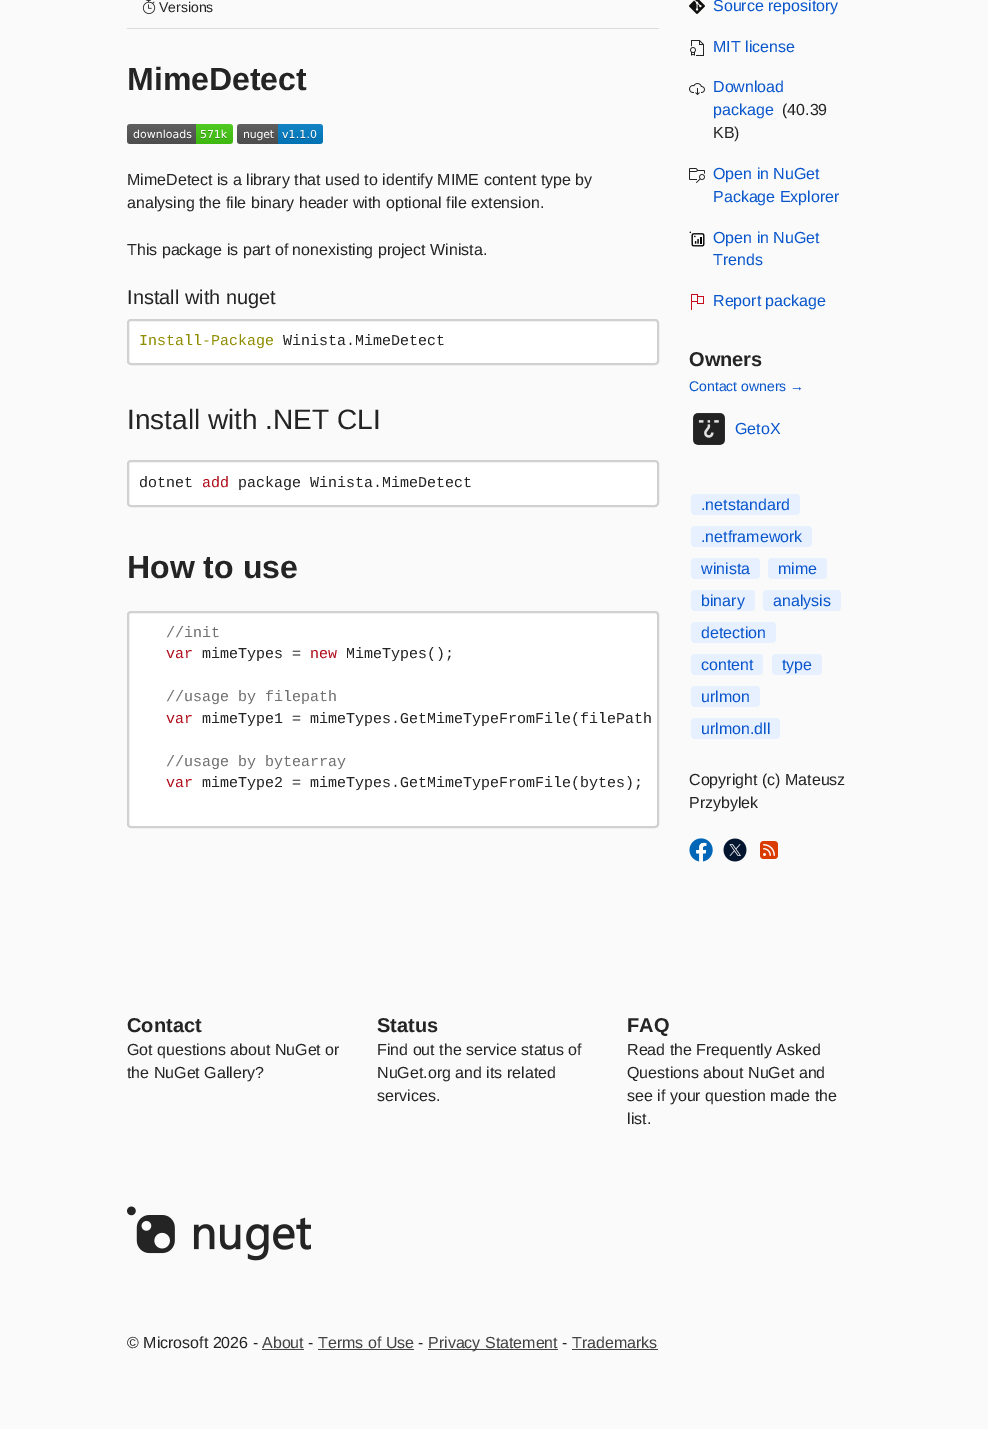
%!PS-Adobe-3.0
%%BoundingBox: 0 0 988 1429
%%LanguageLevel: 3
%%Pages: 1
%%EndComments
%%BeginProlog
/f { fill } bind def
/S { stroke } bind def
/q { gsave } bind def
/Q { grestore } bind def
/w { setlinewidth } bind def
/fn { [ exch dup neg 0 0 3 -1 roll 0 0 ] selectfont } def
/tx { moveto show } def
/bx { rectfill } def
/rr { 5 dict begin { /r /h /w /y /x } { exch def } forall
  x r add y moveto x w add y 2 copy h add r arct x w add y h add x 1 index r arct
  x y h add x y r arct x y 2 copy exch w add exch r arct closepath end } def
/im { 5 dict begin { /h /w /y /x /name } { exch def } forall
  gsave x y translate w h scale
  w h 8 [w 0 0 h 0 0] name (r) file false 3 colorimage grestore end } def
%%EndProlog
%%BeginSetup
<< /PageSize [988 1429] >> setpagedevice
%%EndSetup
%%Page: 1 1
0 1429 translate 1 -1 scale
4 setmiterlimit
0.98 setgray
0 0 988 1429 bx
0.867 setgray
127 28 532 1 bx
(image0.raw) 142 0 14 14 im
/LiberationSans-Regular 14 fn
0.141 setgray
(Versions) 159 12 tx
/LiberationSans-Bold 32 fn
(MimeDetect) 127 90 tx
(image1.raw) 127 124 106 20 im
(image2.raw) 237 124 86 20 im
/LiberationSans-Regular 16 fn
(MimeDetect is a library that used to identify MIME content type by) 127 185 tx
(analysing the file binary header with optional file extension.) 127 208 tx
(This package is part of nonexisting project Winista.) 127 255 tx
/LiberationSans-Regular 20 fn
(Install with nuget) 127 304 tx
1 setgray
128 320 530 44 3 rr q f Q
0.82 setgray
2 w
S
/LiberationMono-Regular 15 fn
0.561 0.553 0 setrgbcolor
(Install-Package) 139 345 tx
0.141 setgray
(Winista.MimeDetect) 283 345 tx
/LiberationSans-Regular 28 fn
(Install with .NET CLI) 127 429 tx
1 setgray
128 461 530 45 3 rr q f Q
0.82 setgray
S
/LiberationMono-Regular 15 fn
0.141 setgray
(dotnet) 139 487 tx
0.694 0.055 0.11 setrgbcolor
(add) 202 487 tx
0.141 setgray
(package Winista.MimeDetect) 238 487 tx
/LiberationSans-Bold 32 fn
(How to use) 127 578 tx
1 setgray
128 612 530 215 3 rr q f Q
0.82 setgray
S
/LiberationMono-Regular 15 fn
0.439 setgray
(//init) 166 637 tx
0.694 0.055 0.11 setrgbcolor
(var) 166 658 tx
0.141 setgray
(mimeTypes =) 202 658 tx
0.694 0.055 0.11 setrgbcolor
(new) 310 658 tx
0.141 setgray
(MimeTypes\(\);) 346 658 tx
0.439 setgray
(//usage by filepath) 166 701 tx
0.694 0.055 0.11 setrgbcolor
(var) 166 723 tx
0.141 setgray
(mimeType1 = mimeTypes.GetMimeTypeFromFile\(filePath) 202 723 tx
0.439 setgray
(//usage by bytearray) 166 766 tx
0.694 0.055 0.11 setrgbcolor
(var) 166 787 tx
0.141 setgray
(mimeType2 = mimeTypes.GetMimeTypeFromFile\(bytes\);) 202 787 tx
(image3.raw) 689 0 16 14 im
/LiberationSans-Regular 16 fn
0.035 0.337 0.8 setrgbcolor
(Source repository) 713 11 tx
(image4.raw) 690 40 14 16 im
(MIT license) 713 52 tx
(image5.raw) 689 83 16 13 im
(Download) 713 92 tx
(package) 713 115 tx
0.141 setgray
(\(40.39) 782 115 tx
(KB\)) 713 138 tx
(image6.raw) 689 168 16 15 im
0.035 0.337 0.8 setrgbcolor
(Open in NuGet) 713 179 tx
(Package Explorer) 713 202 tx
(image7.raw) 689 231 16 16 im
(Open in NuGet) 713 243 tx
(Trends) 713 265 tx
(image8.raw) 691 294 13 16 im
(Report package) 713 306 tx
/LiberationSans-Bold 20 fn
0.141 setgray
(Owners) 689 366 tx
/LiberationSans-Regular 14 fn
0.035 0.337 0.8 setrgbcolor
(Contact owners →) 689 391 tx
(image9.raw) 693 413 32 32 im
/LiberationSans-Regular 16 fn
(GetoX) 735 434 tx
0.906 0.941 1 setrgbcolor
691 494 109 21 4 rr f
0.035 0.337 0.8 setrgbcolor
(.netstandard) 701 510 tx
0.906 0.941 1 setrgbcolor
691 526 121 21 4 rr f
0.035 0.337 0.8 setrgbcolor
(.netframework) 701 542 tx
0.906 0.941 1 setrgbcolor
691 558 69 21 4 rr f
0.035 0.337 0.8 setrgbcolor
(winista) 701 574 tx
0.906 0.941 1 setrgbcolor
768 558 59 21 4 rr f
0.035 0.337 0.8 setrgbcolor
(mime) 778 574 tx
0.906 0.941 1 setrgbcolor
691 590 64 21 4 rr f
0.035 0.337 0.8 setrgbcolor
(binary) 701 606 tx
0.906 0.941 1 setrgbcolor
763 590 78 21 4 rr f
0.035 0.337 0.8 setrgbcolor
(analysis) 773 606 tx
0.906 0.941 1 setrgbcolor
691 622 85 21 4 rr f
0.035 0.337 0.8 setrgbcolor
(detection) 701 638 tx
0.906 0.941 1 setrgbcolor
691 654 72 21 4 rr f
0.035 0.337 0.8 setrgbcolor
(content) 701 670 tx
0.906 0.941 1 setrgbcolor
772 654 50 21 4 rr f
0.035 0.337 0.8 setrgbcolor
(type) 782 670 tx
0.906 0.941 1 setrgbcolor
691 686 69 21 4 rr f
0.035 0.337 0.8 setrgbcolor
(urlmon) 701 702 tx
0.906 0.941 1 setrgbcolor
691 718 89 21 4 rr f
0.035 0.337 0.8 setrgbcolor
(urlmon.dll) 701 734 tx
0.141 setgray
(Copyright \(c\) Mateusz) 689 785 tx
(Przybylek) 689 808 tx
(image10.raw) 689 838 24 24 im
(image11.raw) 723 838 24 24 im
(image12.raw) 760 841 18 18 im
/LiberationSans-Bold 20 fn
(Contact) 127 1032 tx
/LiberationSans-Regular 16 fn
(Got questions about NuGet or) 127 1055 tx
(the NuGet Gallery?) 127 1078 tx
/LiberationSans-Bold 20 fn
(Status) 377 1032 tx
/LiberationSans-Regular 16 fn
(Find out the service status of) 377 1055 tx
(NuGet.org and its related) 377 1078 tx
(services.) 377 1101 tx
/LiberationSans-Bold 20 fn
(FAQ) 627 1032 tx
/LiberationSans-Regular 16 fn
(Read the Frequently Asked) 627 1055 tx
(Questions about NuGet and) 627 1078 tx
(see if your question made the) 627 1101 tx
(list.) 627 1124 tx
(image13.raw) 127 1206 184 55 im
(© Microsoft 2026 -) 127 1348 tx
0.259 setgray
(About) 262 1348 tx
262 1349 42 1 bx
0.141 setgray
(-) 308 1348 tx
0.259 setgray
(Terms of Use) 318 1348 tx
318 1349 96 1 bx
0.141 setgray
(-) 418 1348 tx
0.259 setgray
428 1349 130 1 bx
(Privacy Statement) 428 1348 tx
0.141 setgray
(-) 562 1348 tx
0.259 setgray
(Trademarks) 572 1348 tx
572 1349 86 1 bx
showpage
%%EOF
